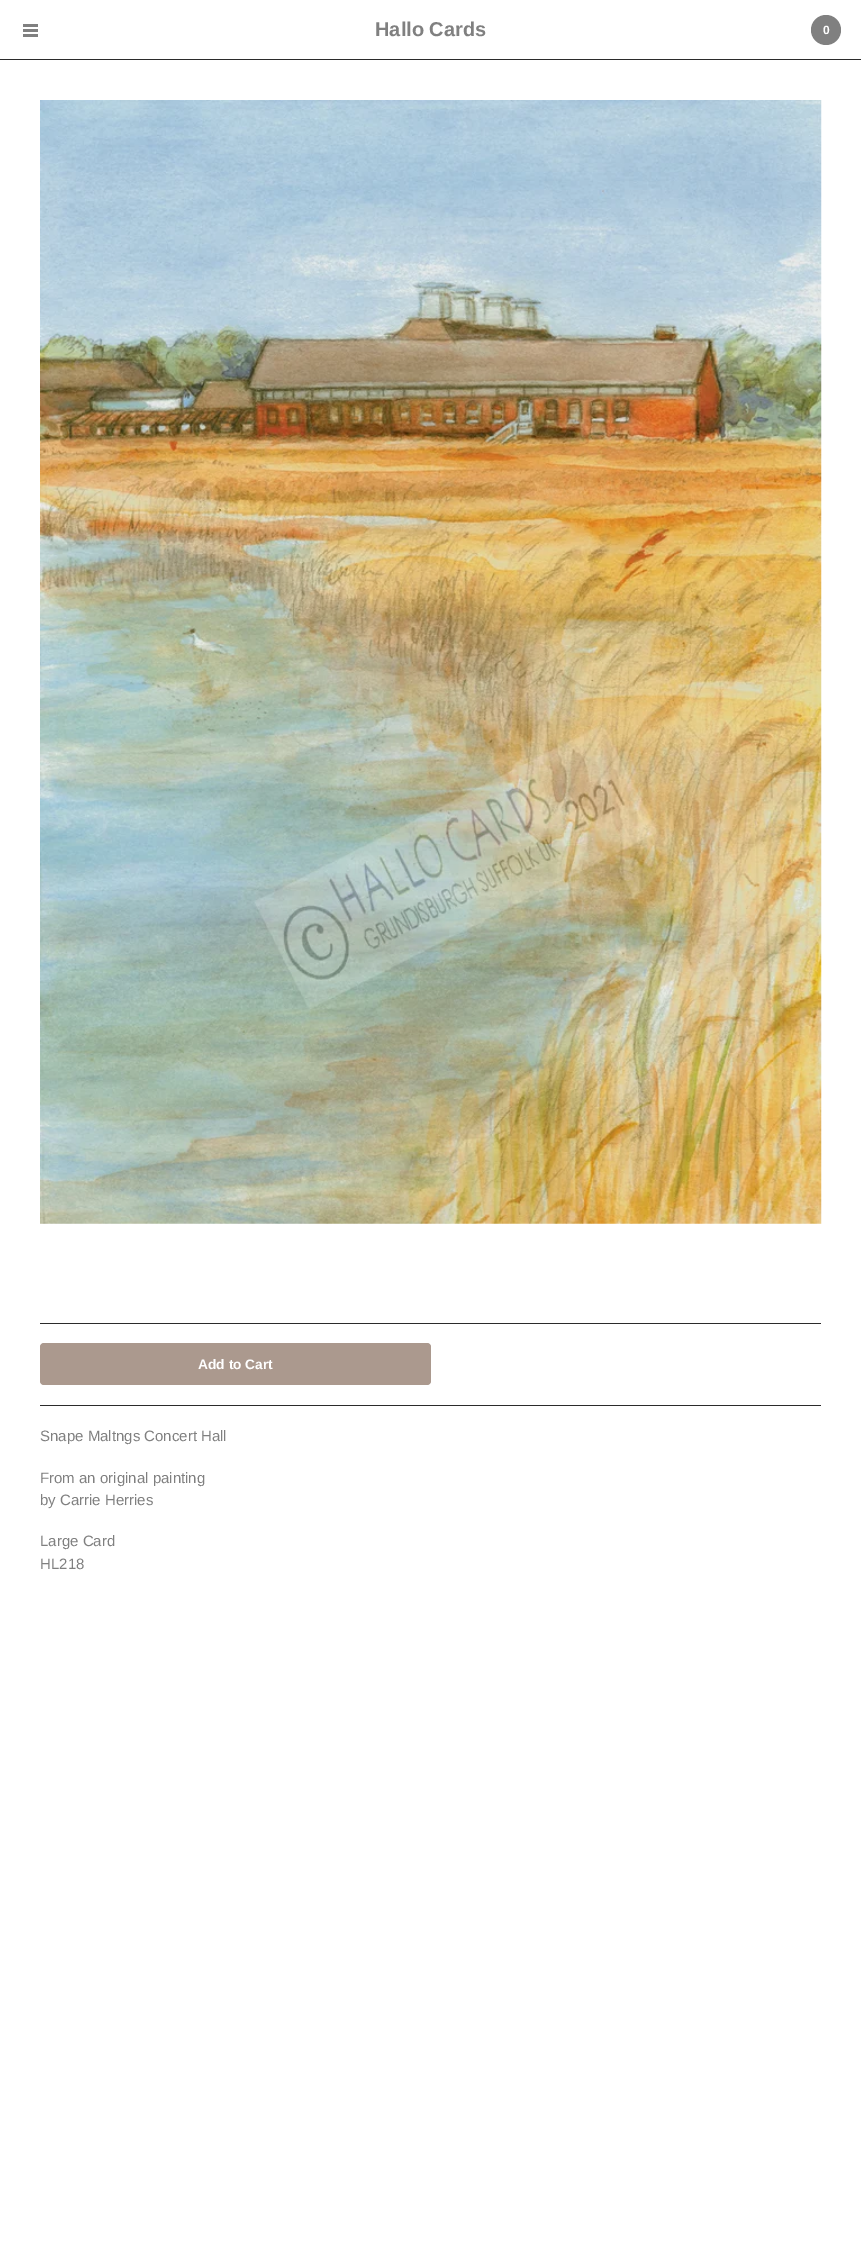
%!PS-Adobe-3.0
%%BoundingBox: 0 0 861 2262
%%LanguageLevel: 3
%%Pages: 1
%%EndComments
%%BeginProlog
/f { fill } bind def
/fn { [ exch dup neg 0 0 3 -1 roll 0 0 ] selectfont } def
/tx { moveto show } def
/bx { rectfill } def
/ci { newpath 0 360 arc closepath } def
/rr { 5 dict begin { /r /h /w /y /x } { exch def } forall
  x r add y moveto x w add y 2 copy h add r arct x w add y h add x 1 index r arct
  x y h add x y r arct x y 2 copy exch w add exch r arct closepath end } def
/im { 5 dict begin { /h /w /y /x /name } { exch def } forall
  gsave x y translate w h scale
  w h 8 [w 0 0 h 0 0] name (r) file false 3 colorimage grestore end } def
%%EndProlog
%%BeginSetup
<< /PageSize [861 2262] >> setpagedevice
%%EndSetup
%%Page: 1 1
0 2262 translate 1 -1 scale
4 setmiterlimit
1 setgray
0 0 861 2262 bx
0.169 setgray
0 59 861 1 bx
0.502 setgray
23 29 15 3 bx
23 24 15 3 bx
23 34 15 3 bx
/LiberationSans-Bold 20 fn
(Hallo Cards) 375 36 tx
826 30 15 ci f
/LiberationSans-Bold 12 fn
1 setgray
(0) 823 34 tx
(image0.raw) 40 100 782 1124 im
0.169 setgray
40 1323 781 1 bx
0.671 0.6 0.557 setrgbcolor
40 1343 391 42 4 rr f
/LiberationSans-Bold 13.75 fn
1 setgray
(Add to Cart) 198 1369 tx
0.169 setgray
40 1405 781 1 bx
/LiberationSans-Regular 15 fn
0.502 setgray
(Snape Maltngs Concert Hall) 40 1441 tx
(From an original painting) 40 1483 tx
(by Carrie Herries) 40 1505 tx
(Large Card) 40 1546 tx
(HL218) 40 1569 tx
showpage
%%EOF
